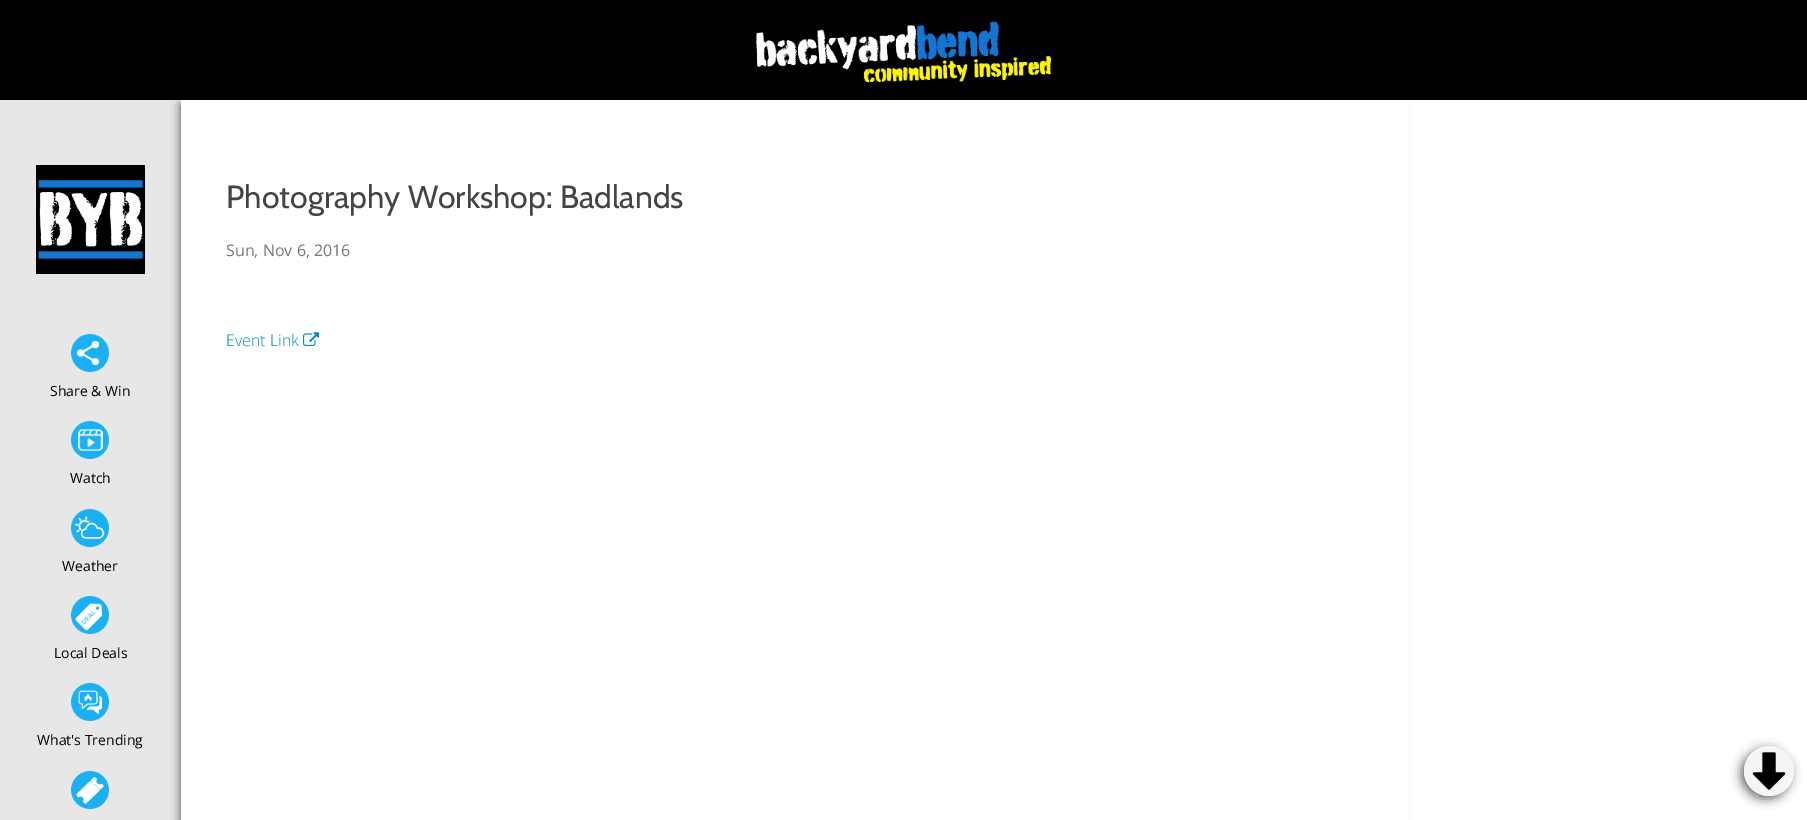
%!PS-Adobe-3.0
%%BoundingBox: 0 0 1807 820
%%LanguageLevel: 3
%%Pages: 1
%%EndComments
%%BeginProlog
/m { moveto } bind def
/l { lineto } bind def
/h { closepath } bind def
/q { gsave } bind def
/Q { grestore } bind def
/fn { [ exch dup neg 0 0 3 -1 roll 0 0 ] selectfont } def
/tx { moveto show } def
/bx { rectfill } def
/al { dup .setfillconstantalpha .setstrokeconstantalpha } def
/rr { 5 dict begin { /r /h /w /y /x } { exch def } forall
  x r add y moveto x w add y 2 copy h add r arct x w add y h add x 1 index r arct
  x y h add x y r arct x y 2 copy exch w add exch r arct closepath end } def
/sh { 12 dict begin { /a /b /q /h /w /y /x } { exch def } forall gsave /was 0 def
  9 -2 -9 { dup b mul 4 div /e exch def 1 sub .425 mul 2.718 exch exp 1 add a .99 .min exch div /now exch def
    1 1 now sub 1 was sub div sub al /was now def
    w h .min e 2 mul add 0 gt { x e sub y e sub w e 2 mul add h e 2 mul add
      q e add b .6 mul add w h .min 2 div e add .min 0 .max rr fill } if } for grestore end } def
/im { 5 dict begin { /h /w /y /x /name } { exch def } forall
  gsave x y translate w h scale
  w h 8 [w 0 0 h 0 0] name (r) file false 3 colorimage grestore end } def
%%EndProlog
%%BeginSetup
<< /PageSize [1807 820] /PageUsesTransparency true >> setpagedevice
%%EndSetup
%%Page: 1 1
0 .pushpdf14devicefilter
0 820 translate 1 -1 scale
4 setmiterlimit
1 setgray
0 0 1807 820 bx
0 setgray
0 0 1807 100 bx
(image0.raw) 756 21 296 62 im
0.4 setgray
1741 749 50 50 25 5 1 sh
(image1.raw) 1744 746 50 50 im
0.906 setgray
0 100 181 720 bx
q
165 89 m 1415 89 l 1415 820 l 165 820 l h 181 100 m 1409 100 l 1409 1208 l 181 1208 l h eoclip newpath
0 setgray
181 105 1218 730 0 5 0.7 sh
Q
/Cabin-Regular 32 fn
0.267 setgray
(Photography Workshop: Badlands) 226 208 tx
/OpenSans-Regular 16 fn
0.467 setgray
(Sun, Nov 6, 2016) 226 256 tx
/OpenSans-Light 16 fn
0 0.549 0.729 setrgbcolor
(Event Link) 226 346 tx
(image2.raw) 303 332 16 14 im
(image3.raw) 36 165 109 109 im
(image4.raw) 71 334 38 38 im
/OpenSans-Regular 14 fn
0 setgray
(Share & Win) 50 396 tx
(image5.raw) 71 421 38 38 im
(Watch) 70 483 tx
(image6.raw) 71 509 38 38 im
(Weather) 62 571 tx
(image7.raw) 71 596 38 38 im
(Local Deals) 54 658 tx
(image8.raw) 71 683 38 38 im
(What's Trending) 37 745 tx
(image9.raw) 71 771 38 38 im
.poppdf14devicefilter showpage
%%EOF
